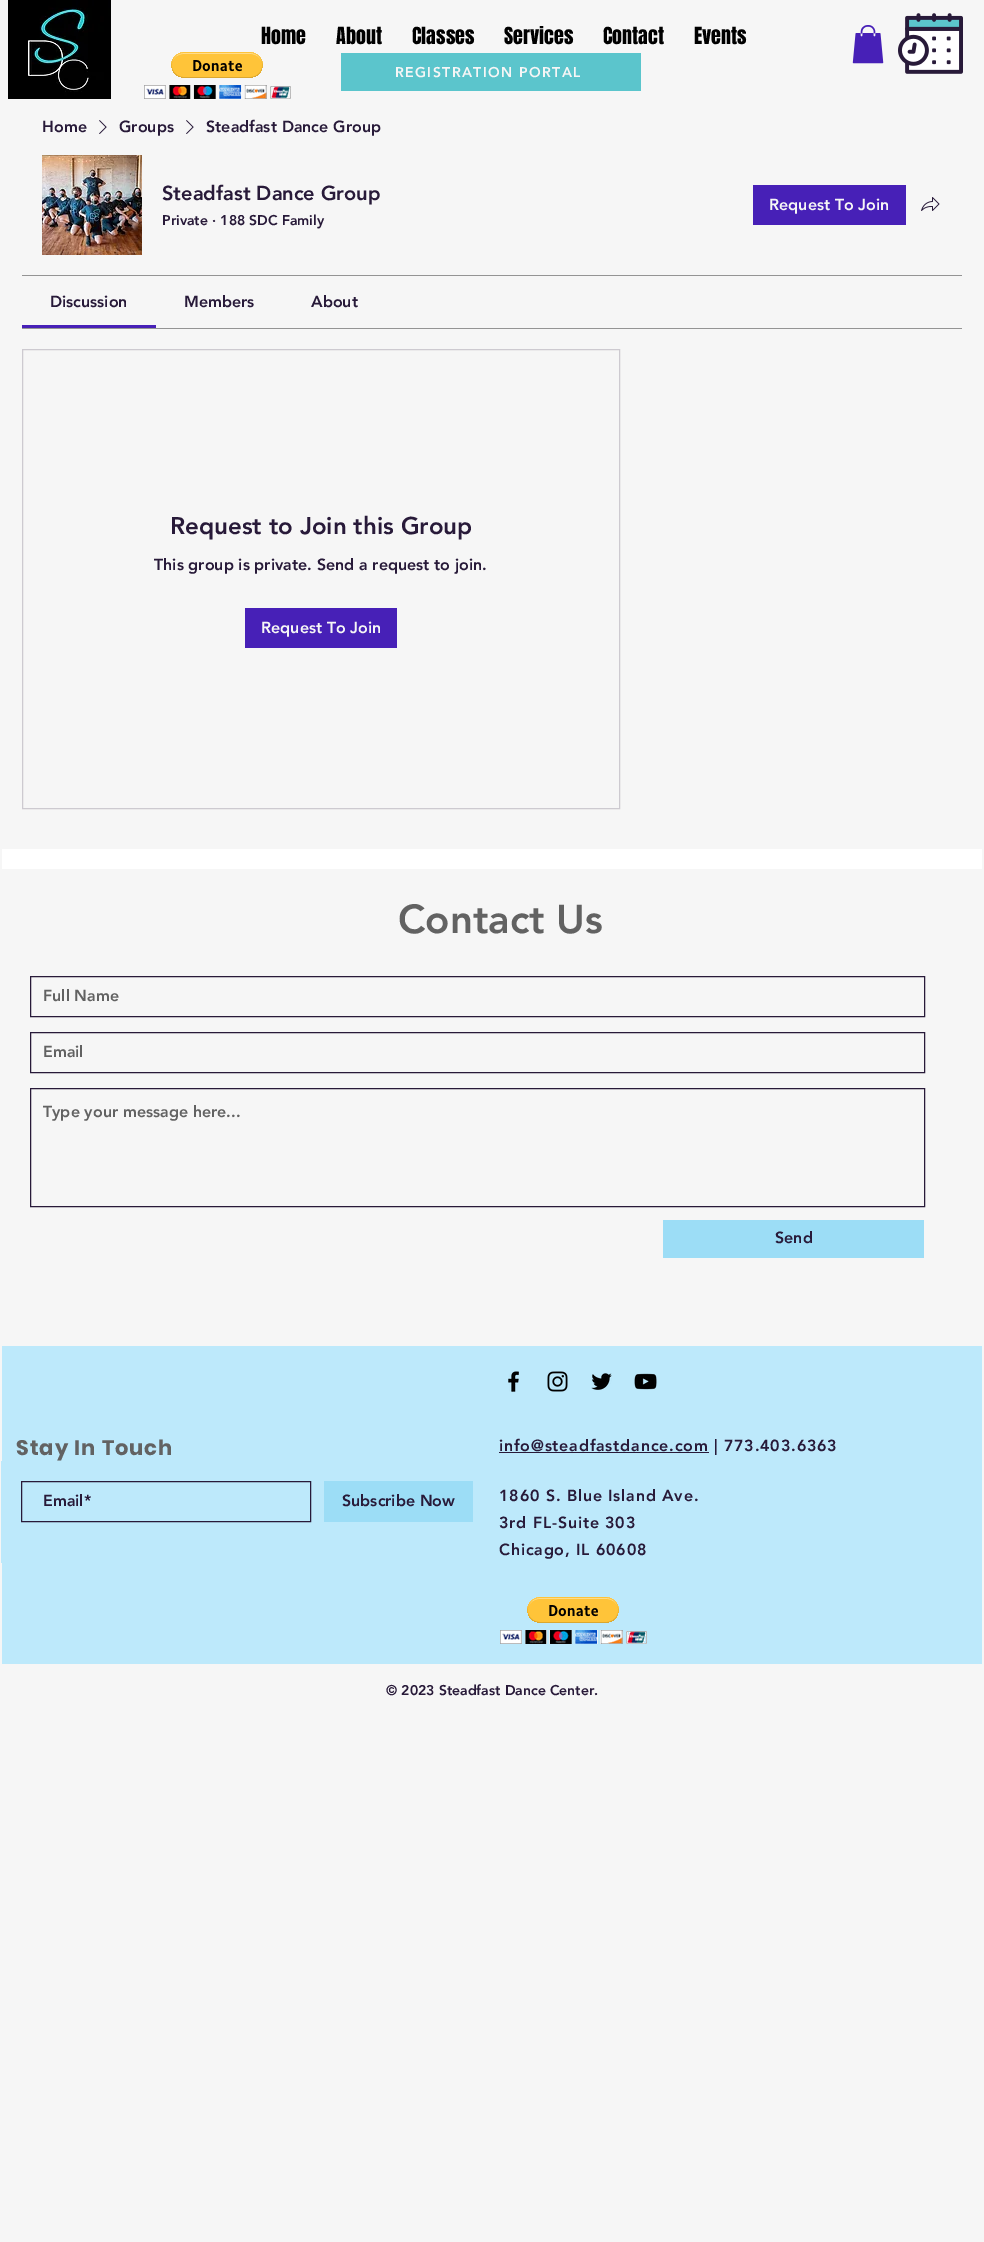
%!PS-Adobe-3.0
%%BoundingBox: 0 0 984 2242
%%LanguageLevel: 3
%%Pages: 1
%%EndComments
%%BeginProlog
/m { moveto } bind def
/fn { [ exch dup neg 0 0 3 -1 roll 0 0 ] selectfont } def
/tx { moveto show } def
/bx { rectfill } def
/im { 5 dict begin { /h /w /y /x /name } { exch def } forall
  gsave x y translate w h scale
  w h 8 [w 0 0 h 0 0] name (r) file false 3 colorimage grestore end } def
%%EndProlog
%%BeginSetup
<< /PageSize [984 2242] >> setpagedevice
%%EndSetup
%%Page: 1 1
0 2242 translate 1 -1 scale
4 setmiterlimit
0.965 setgray
0 0 984 2242 bx
/Anton-Regular 20 fn
0 setgray
(Home) 261 44 tx
(About) 336 44 tx
(Classes) 412 44 tx
(Services) 504 44 tx
(Contact) 603 44 tx
(Events) 694 44 tx
(image0.raw) 8 0 103 99 im
(image1.raw) 852 25 32 39 im
(image2.raw) 898 13 65 61 im
(image3.raw) 144 52 147 47 im
0.357 0.773 0.8 setrgbcolor
341 53 300 38 bx
/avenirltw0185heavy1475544-Black 14 fn
0.965 setgray
395 77 m 1.4 0 (REGISTRATION PORTAL) ashow
/avenirltw0185heavy1475544-Black 16 fn
0.157 0.102 0.224 setrgbcolor
(Home) 42 132 tx
(image4.raw) 99 120 8 14 im
(Groups) 119 132 tx
(image4.raw) 186 120 8 14 im
(Steadfast Dance Group) 206 132 tx
(image5.raw) 42 155 100 100 im
/avenirltw0185heavy1475544-Black 20 fn
(Steadfast Dance Group) 162 200 tx
/avenirltw0185heavy1475544-Black 14 fn
(Private · 188 SDC Family) 162 225 tx
0.278 0.125 0.718 setrgbcolor
753 185 153 40 bx
/avenirltw0185heavy1475544-Black 16 fn
0.965 setgray
(Request To Join) 769 210 tx
(image6.raw) 921 197 19 14 im
0.58 setgray
22 275 940 1 bx
22 328 940 1 bx
0.278 0.125 0.718 setrgbcolor
22 325 134 3 bx
0.157 0.102 0.224 setrgbcolor
(Discussion) 50 307 tx
(Members) 184 307 tx
(About) 311 307 tx
0.804 0.792 0.816 setrgbcolor
22.5 349.5 597 459 rectstroke
/avenirltw0185heavy1475544-Black 24 fn
0.157 0.102 0.224 setrgbcolor
(Request to Join this Group) 170 534 tx
/avenirltw0185heavy1475544-Black 16 fn
(This group is private. Send a request to join.) 154 570 tx
0.278 0.125 0.718 setrgbcolor
245 608 152 40 bx
0.965 setgray
(Request To Join) 261 633 tx
1 setgray
2 849 980 20 bx
/avenirltw0185heavy1475544-Black 40 fn
0.384 setgray
(Contact Us) 398 933 tx
0.157 0.102 0.224 setrgbcolor
30.5 976.5 894 40 rectstroke
/avenirltw0185heavy1475544-Black 16 fn
0.384 setgray
(Full Name) 43 1001 tx
0.157 0.102 0.224 setrgbcolor
30.5 1032.5 894 40 rectstroke
0.384 setgray
(Email) 43 1057 tx
0.157 0.102 0.224 setrgbcolor
30.5 1088.5 894 118 rectstroke
0.384 setgray
(Type your message here...) 43 1117 tx
0.612 0.867 0.965 setrgbcolor
663 1220 261 38 bx
0.157 0.102 0.224 setrgbcolor
(Send) 775 1243 tx
0.741 0.914 0.984 setrgbcolor
2 1346 980 318 bx
/Poppins-Bold 21 fn
0.384 setgray
16 1455 m 1 0 (Stay In Touch) ashow
0.741 0.914 0.984 setrgbcolor
1 1461 1 102 bx
0.157 0.102 0.224 setrgbcolor
21.5 1481.5 289 40 rectstroke
/avenirltw0185heavy1475544-Black 16 fn
(Email*) 43 1506 tx
0.612 0.867 0.965 setrgbcolor
324 1481 149 41 bx
0.157 0.102 0.224 setrgbcolor
(Subscribe Now) 342 1506 tx
(image7.raw) 508 1371 11 21 im
(image8.raw) 547 1371 21 21 im
(image9.raw) 591 1373 21 17 im
(image10.raw) 634 1373 23 17 im
499 1452 210 1 bx
499 1451 m 0.8 0 (info@steadfastdance.com | 773.403.6363) ashow
499 1501 m 0.8 0 (1860 S. Blue Island Ave.) ashow
499 1528 m 0.8 0 (3rd FL-Suite 303) ashow
499 1555 m 0.8 0 (Chicago, IL 60608) ashow
(image11.raw) 500 1597 147 47 im
/avenirltw0185heavy1475544-Black 14 fn
(© 2023 Steadfast Dance Center.) 386 1695 tx
showpage
%%EOF
